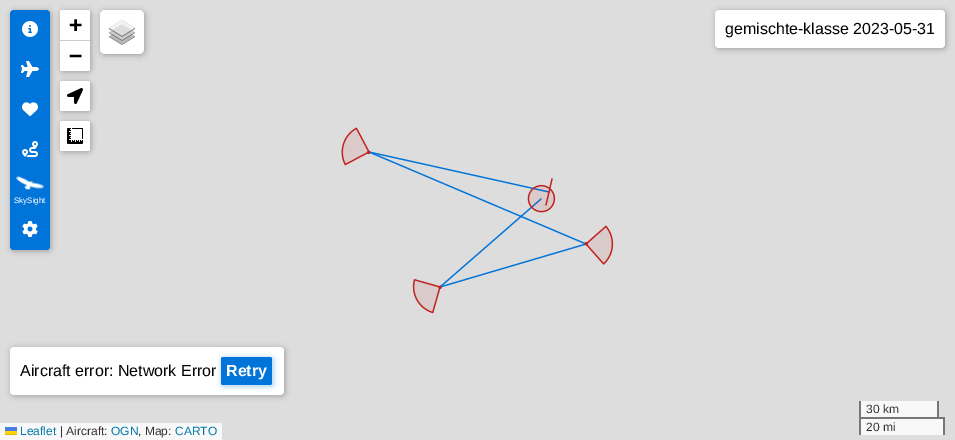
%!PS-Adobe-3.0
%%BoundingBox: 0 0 955 440
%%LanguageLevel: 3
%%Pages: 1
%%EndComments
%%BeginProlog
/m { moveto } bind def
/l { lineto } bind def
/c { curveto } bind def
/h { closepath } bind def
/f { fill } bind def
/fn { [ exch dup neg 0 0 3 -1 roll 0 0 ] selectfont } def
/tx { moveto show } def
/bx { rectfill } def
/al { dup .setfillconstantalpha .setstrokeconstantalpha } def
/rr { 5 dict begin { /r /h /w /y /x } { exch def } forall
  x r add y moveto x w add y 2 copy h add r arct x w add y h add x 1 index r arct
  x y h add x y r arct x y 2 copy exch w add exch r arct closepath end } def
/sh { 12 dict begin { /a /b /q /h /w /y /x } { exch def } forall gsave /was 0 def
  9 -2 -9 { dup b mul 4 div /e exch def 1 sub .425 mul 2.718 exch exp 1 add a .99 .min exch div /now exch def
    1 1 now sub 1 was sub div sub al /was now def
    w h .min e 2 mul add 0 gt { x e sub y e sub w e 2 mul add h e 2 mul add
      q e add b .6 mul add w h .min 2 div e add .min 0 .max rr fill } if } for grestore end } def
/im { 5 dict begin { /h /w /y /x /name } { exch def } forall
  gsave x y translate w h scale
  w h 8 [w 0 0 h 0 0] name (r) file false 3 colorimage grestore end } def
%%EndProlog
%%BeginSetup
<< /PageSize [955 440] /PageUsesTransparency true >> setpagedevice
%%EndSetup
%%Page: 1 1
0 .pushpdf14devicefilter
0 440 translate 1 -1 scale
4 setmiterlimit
0.867 setgray
0 0 955 440 bx
0.973 setgray
861 419 82 16 bx
0 setgray
61 11 30 61 4 3 0.3 sh
1 setgray
62 10 m 88 10 l 89 10 90 11 90 12 c 90 41 l 60 41 l 60 12 l 60 11 61 10 62 10 c h f
0.8 setgray
60 40 30 1 bx
/DejaVuSansMono-Bold 22 fn
0 setgray
(+) 69 32 tx
1 setgray
60 41 m 90 41 l 90 69 l 90 70 89 71 88 71 c 62 71 l 61 71 60 70 60 69 c h f
0 setgray
(−) 69 63 tx
101 11 44 44 5 3 0.3 sh
1 setgray
100 10 44 44 5 rr f
(image0.raw) 109 20 26 25 im
0 setgray
61 82 30 30 4 3 0.3 sh
1 setgray
60 81 30 30 2 rr f
(image1.raw) 67 88 16 16 im
0 setgray
61 122 30 30 4 3 0.3 sh
1 setgray
60 121 30 30 2 rr f
(image2.raw) 67 128 16 16 im
0.973 setgray
0 423 222 17 bx
/LiberationSans-Regular 12 fn
0 0.471 0.659 setrgbcolor
(Leaflet) 20 435 tx
0.298 0.482 0.882 setrgbcolor
5 427 12 4 bx
1 0.835 0 setrgbcolor
5 431 12 3 bx
0.878 0.737 0 setrgbcolor
5 434 12 1 bx
0.2 setgray
(| Aircraft:) 60 435 tx
0 0.471 0.659 setrgbcolor
(OGN) 111 435 tx
0.2 setgray
(, Map:) 138 435 tx
0 0.471 0.659 setrgbcolor
(CARTO) 175 435 tx
0.973 setgray
861 401 76 16 bx
0.467 setgray
937 401 2 18 bx
859 401 2 18 bx
0.2 setgray
(30 km) 866 413 tx
0.467 setgray
859 417 86 2 bx
943 417 2 18 bx
859 417 2 18 bx
0.2 setgray
(20 mi) 866 431 tx
(image3.raw) 341 127 273 187 im
0 setgray
716 11 230 38 4 3 0.3 sh
1 setgray
715 10 230 38 4 rr f
/LiberationSans-Regular 16 fn
0 setgray
(gemischte-klasse 2023-05-31) 725 34 tx
11 11 40 240 4 3 0.3 sh
0 0.455 0.851 setrgbcolor
10 10 40 240 4 rr f
(image4.raw) 22 21 16 16 im
(image5.raw) 21 61 18 16 im
(image6.raw) 22 102 16 14 im
(image7.raw) 22 141 16 16 im
(image8.raw) 16 175 28 15 im
/LiberationSans-Regular 8 fn
1 setgray
(SkySight) 14 203 tx
0 0.455 0.851 setrgbcolor
10 210 m 50 210 l 50 246 l 50 248 48 250 46 250 c 14 250 l 12 250 10 248 10 246 c h f
(image9.raw) 22 221 16 16 im
0 setgray
11 348 274 48 4 3 0.3 sh
1 setgray
10 347 274 48 4 rr f
/LiberationSans-Regular 16 fn
0 setgray
(Aircraft error: Network Error) 20 376 tx
0 0.455 0.851 setrgbcolor
221 357 53 30 3 2.5 0.3 sh
221 357 51 28 2 rr f
/LiberationSans-Bold 16 fn
1 setgray
(Retry) 226 376 tx
.poppdf14devicefilter showpage
%%EOF
